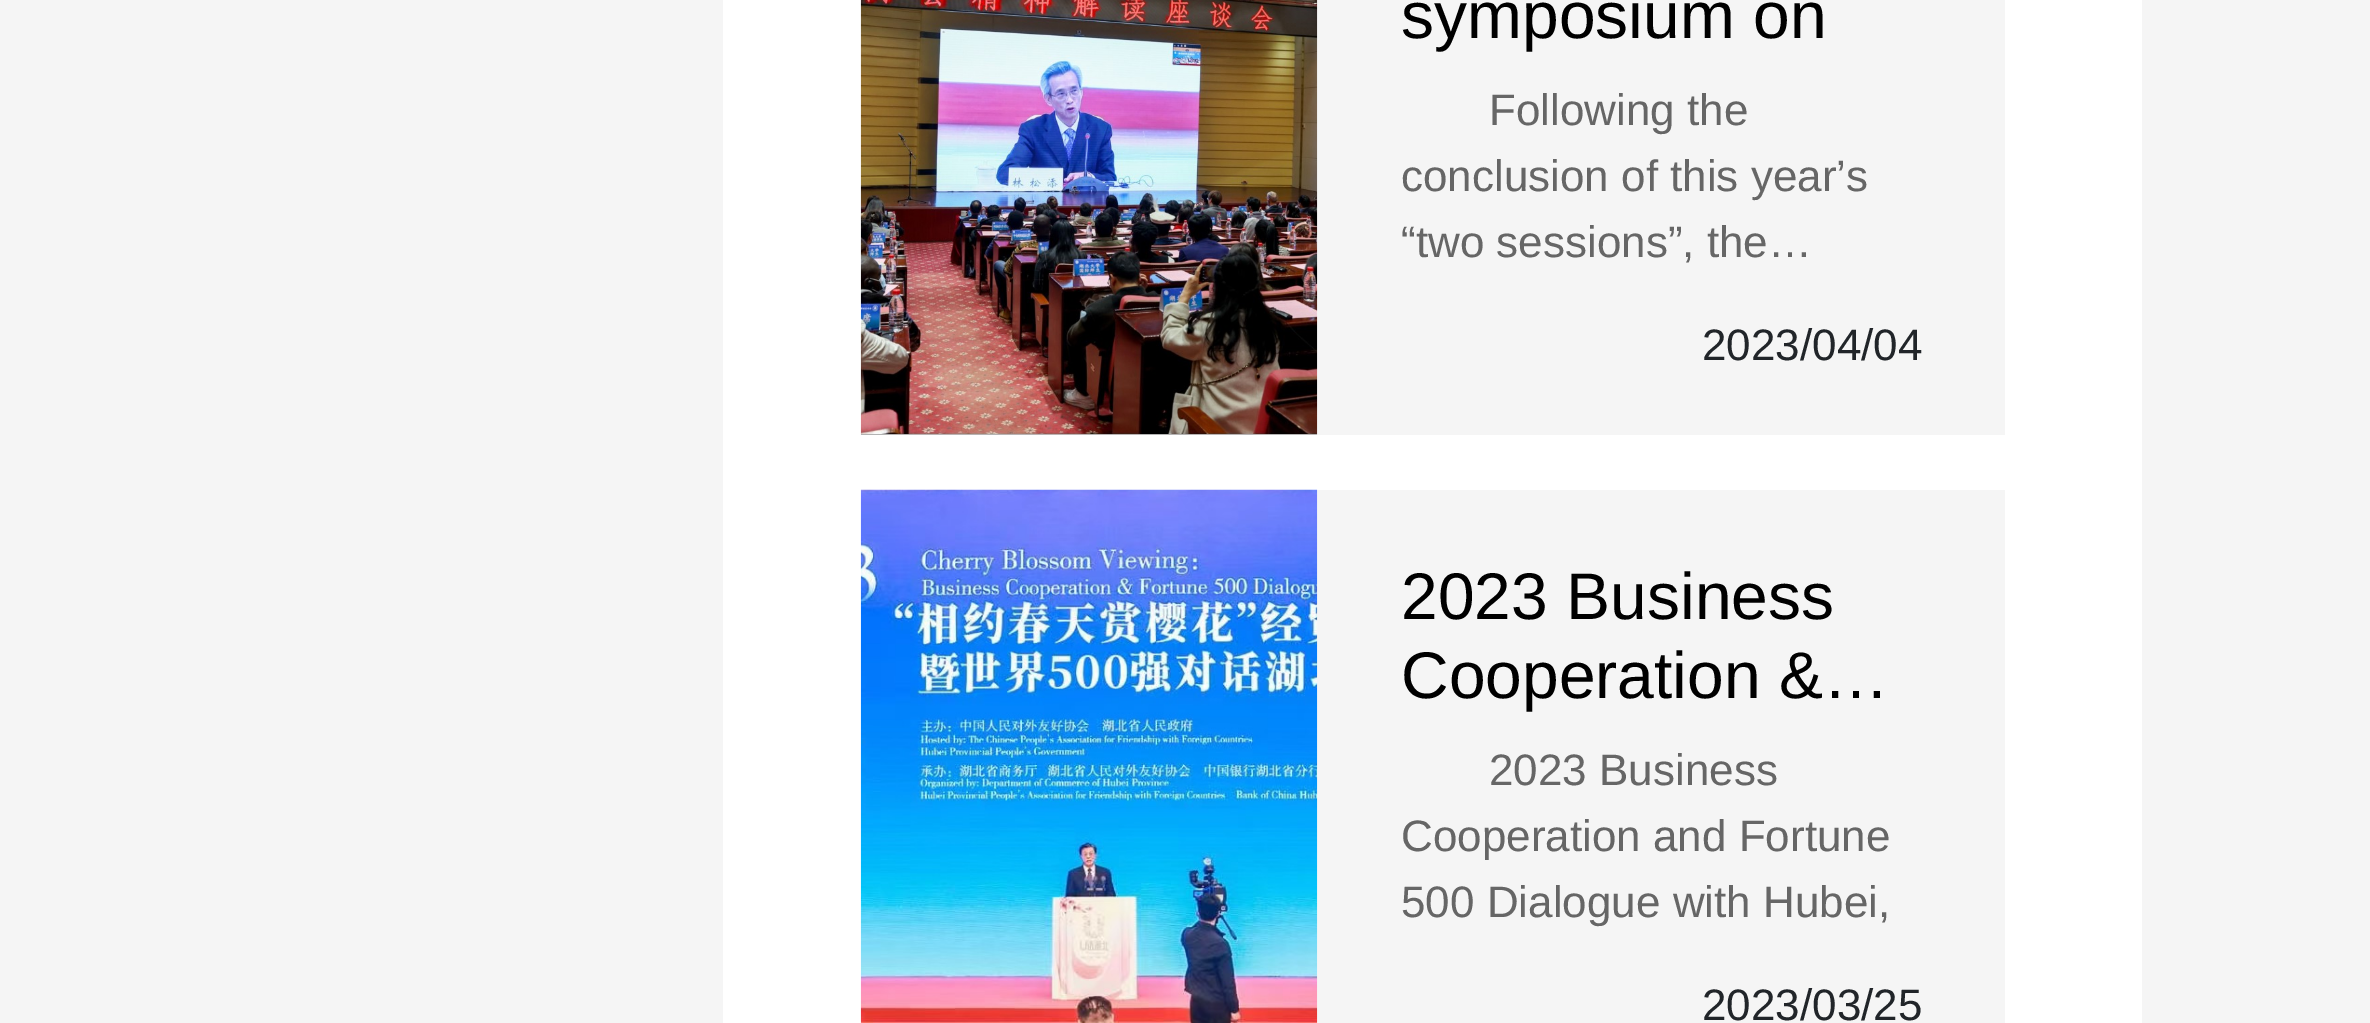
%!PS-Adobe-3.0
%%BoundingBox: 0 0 2370 1023
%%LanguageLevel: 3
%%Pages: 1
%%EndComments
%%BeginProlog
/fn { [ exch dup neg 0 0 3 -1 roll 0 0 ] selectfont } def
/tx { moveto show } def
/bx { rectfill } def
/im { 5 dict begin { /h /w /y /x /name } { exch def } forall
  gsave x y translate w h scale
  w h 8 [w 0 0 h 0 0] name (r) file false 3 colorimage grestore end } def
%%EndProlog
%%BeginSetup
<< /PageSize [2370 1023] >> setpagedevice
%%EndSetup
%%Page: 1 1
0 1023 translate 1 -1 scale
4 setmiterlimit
0.961 setgray
0 0 2370 1023 bx
1 setgray
723 0 1419 1023 bx
0.961 setgray
1317 0 688 435 bx
0.937 setgray
861 434 456 1 bx
(image0.raw) 860 0 458 435 im
/LiberationSans-Regular 66 fn
0 setgray
(symposium on) 1401 38 tx
/LiberationSans-Regular 44 fn
0.4 setgray
(Following the) 1489 125 tx
(conclusion of this year’s) 1401 191 tx
(“two sessions”, the…) 1401 257 tx
0.129 0.145 0.161 setrgbcolor
(2023/04/04) 1702 360 tx
0.961 setgray
1317 490 688 533 bx
(image1.raw) 860 489 458 534 im
/LiberationSans-Regular 66 fn
0 setgray
(2023 Business) 1401 619 tx
(Cooperation &…) 1401 698 tx
/LiberationSans-Regular 44 fn
0.4 setgray
(2023 Business) 1489 785 tx
(Cooperation and Fortune) 1401 851 tx
(500 Dialogue with Hubei,) 1401 917 tx
0.129 0.145 0.161 setrgbcolor
(2023/03/25) 1702 1020 tx
showpage
%%EOF
